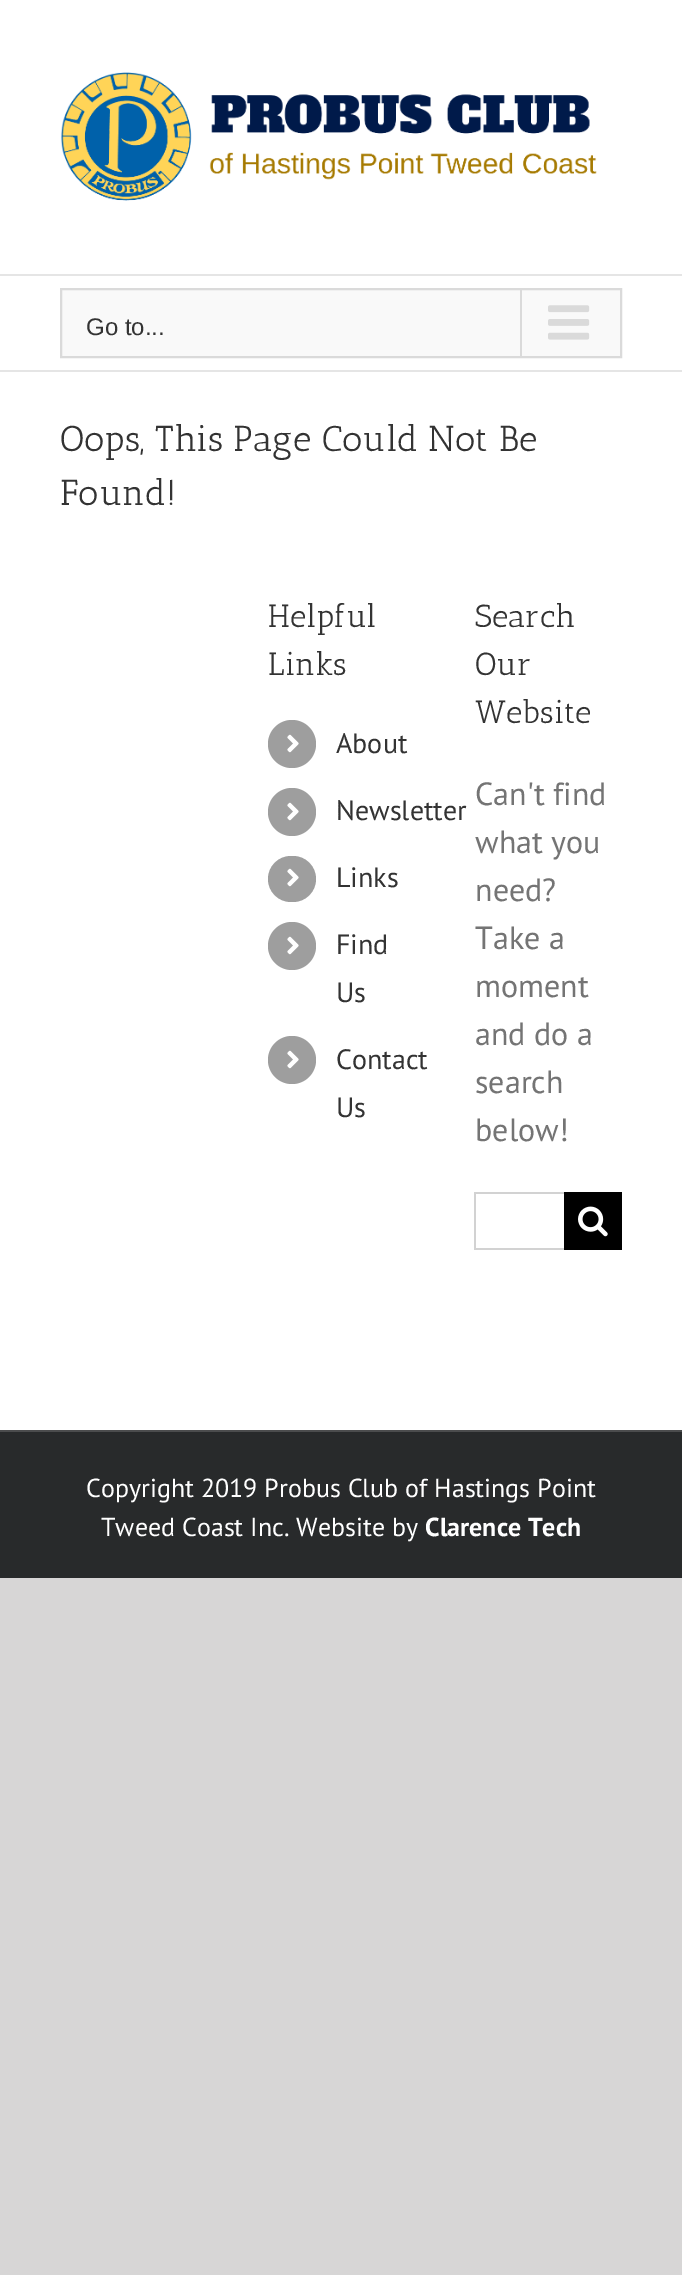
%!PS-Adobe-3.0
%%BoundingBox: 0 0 682 2275
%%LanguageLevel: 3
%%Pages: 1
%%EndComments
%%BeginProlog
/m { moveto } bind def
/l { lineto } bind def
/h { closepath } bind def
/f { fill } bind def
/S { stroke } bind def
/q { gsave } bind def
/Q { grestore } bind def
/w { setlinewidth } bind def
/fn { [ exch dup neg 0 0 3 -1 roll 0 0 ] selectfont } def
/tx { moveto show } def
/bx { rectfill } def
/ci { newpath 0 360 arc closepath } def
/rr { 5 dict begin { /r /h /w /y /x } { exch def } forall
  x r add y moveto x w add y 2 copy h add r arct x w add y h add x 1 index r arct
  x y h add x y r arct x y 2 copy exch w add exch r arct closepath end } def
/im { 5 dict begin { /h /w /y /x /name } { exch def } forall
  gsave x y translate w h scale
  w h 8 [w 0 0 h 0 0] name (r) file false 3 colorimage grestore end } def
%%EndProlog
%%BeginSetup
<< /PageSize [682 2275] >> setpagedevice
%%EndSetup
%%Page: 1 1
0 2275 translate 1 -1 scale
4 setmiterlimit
0.843 0.839 0.839 setrgbcolor
0 0 682 2275 bx
1 setgray
0 0 682 274 bx
0.898 setgray
0 274 682 2 bx
(image0.raw) 60 72 537 129 im
1 setgray
0 276 682 94 bx
0.898 setgray
0 370 682 2 bx
0.976 setgray
61 289 m 621 289 l 621 357 l 61 357 l h q f Q
0.855 setgray
2 w
S
/LiberationSans-Regular 24 fn
0.2 setgray
(Go to...) 86 335 tx
0.855 setgray
520 290 2 66 bx
(image1.raw) 548 305 42 35 im
1 setgray
0 372 682 1058 bx
/AnticSlab-Regular 36 fn
0.2 setgray
(Oops, This Page Could Not Be) 60 451 tx
(Found!) 60 505 tx
/AnticSlab-Regular 32 fn
(Helpful) 268 627 tx
(Links) 268 675 tx
0.62 setgray
292 744 24 ci f
(image2.raw) 287 734 12 19 im
/PTSans-Regular 28 fn
0.2 setgray
(About) 336 753 tx
0.62 setgray
292 812 24 ci f
(image2.raw) 287 802 12 19 im
0.2 setgray
(Newsletter) 336 820 tx
0.62 setgray
268 856 48 46 23 rr f
(image2.raw) 287 868 12 19 im
0.2 setgray
(Links) 336 887 tx
0.62 setgray
292 946 24 ci f
(image2.raw) 287 936 12 19 im
0.2 setgray
(Find) 336 954 tx
(Us) 336 1002 tx
0.62 setgray
292 1060 24 ci f
(image2.raw) 287 1050 12 19 im
0.2 setgray
(Contact) 336 1069 tx
(Us) 336 1117 tx
/AnticSlab-Regular 32 fn
(Search) 475 627 tx
(Our) 475 675 tx
(Website) 475 723 tx
/PTSans-Regular 32 fn
0.455 setgray
(Can't find) 475 805 tx
(what you) 475 853 tx
(need?) 475 901 tx
(Take a) 475 949 tx
(moment) 475 997 tx
(and do a) 475 1045 tx
(search) 475 1093 tx
(below!) 475 1141 tx
0.824 setgray
474 1192 90 2 bx
474 1248 90 2 bx
474 1192 2 58 bx
0 setgray
564 1192 58 58 bx
(image3.raw) 578 1206 30 31 im
0.157 0.165 0.169 setrgbcolor
0 1432 682 146 bx
0.294 0.298 0.302 setrgbcolor
0 1430 682 2 bx
/PTSans-Regular 26 fn
1 setgray
(Copyright 2019 Probus Club of Hastings Point) 86 1497 tx
(Tweed Coast Inc. Website by) 101 1536 tx
/PTSans-Bold 26 fn
(Clarence Tech) 425 1536 tx
showpage
%%EOF
